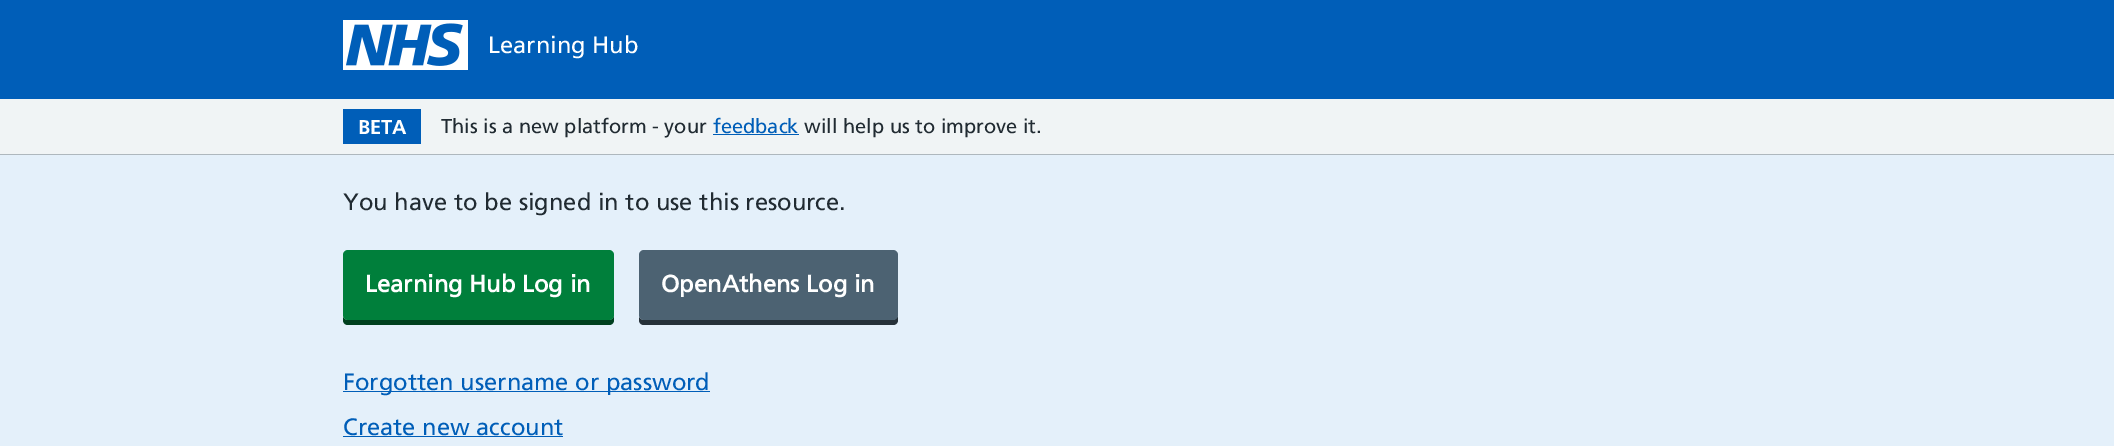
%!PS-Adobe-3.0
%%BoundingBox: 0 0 2114 446
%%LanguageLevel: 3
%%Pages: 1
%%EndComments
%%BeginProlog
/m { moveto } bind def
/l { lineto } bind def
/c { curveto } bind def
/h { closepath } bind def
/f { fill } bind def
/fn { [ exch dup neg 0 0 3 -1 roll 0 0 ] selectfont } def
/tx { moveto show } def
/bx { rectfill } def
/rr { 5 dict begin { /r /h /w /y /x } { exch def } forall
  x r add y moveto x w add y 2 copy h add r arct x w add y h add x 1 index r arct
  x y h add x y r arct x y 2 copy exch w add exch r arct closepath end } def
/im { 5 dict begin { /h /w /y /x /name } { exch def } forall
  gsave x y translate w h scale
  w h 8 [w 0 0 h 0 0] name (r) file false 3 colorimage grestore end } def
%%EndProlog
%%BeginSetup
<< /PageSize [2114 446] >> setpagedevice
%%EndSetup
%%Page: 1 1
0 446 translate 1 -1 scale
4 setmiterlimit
0.941 0.957 0.961 setrgbcolor
0 0 2114 446 bx
0 0.369 0.722 setrgbcolor
0 0 2114 99 bx
(image0.raw) 343 20 125 50 im
/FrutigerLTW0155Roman-Regular 23.75 fn
1 setgray
(Learning Hub) 488 53 tx
0 0.369 0.722 setrgbcolor
343 109 78 35 bx
/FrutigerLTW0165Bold-Bold 20 fn
1 setgray
(BETA) 358 134 tx
/FrutigerLTW0155Roman-Regular 20 fn
0.129 0.169 0.196 setrgbcolor
(This is a new platform - your) 441 133 tx
0 0.369 0.722 setrgbcolor
(feedback) 713 133 tx
713 134 86 1 bx
0.129 0.169 0.196 setrgbcolor
(will help us to improve it.) 804 133 tx
0.682 0.718 0.741 setrgbcolor
0 154 2114 1 bx
0.894 0.941 0.98 setrgbcolor
0 155 2114 291 bx
/FrutigerLTW0155Roman-Regular 23.75 fn
0.129 0.169 0.196 setrgbcolor
(You have to be signed in to use this resource.) 343 210 tx
0 0.251 0.118 setrgbcolor
343 317 m 343 320 l 343 323 345 325 348 325 c 609 325 l 612 325 614 323 614 320 c 614 258 l 614 315 l 614 318 612 320 609 320 c 348 320 l 346 320 344 319 343 317 c h f
0 0.498 0.231 setrgbcolor
343 250 271 70 5 rr f
/FrutigerLTW0155Roman-Bold 23.75 fn
1 setgray
(Learning Hub Log in) 365 292 tx
0.149 0.192 0.224 setrgbcolor
639 317 m 639 320 l 639 323 641 325 644 325 c 893 325 l 896 325 898 323 898 320 c 898 260 l 898 258 l 898 315 l 898 318 895 320 892 320 c 644 320 l 642 320 640 319 639 317 c h f
0.298 0.384 0.447 setrgbcolor
639 250 259 70 5 rr f
1 setgray
(OpenAthens Log in) 661 292 tx
0 0.369 0.722 setrgbcolor
343 391 367 1 bx
/FrutigerLTW0155Roman-Regular 23.75 fn
(Forgotten username or password) 343 390 tx
(Create new account) 343 435 tx
343 436 220 1 bx
showpage
%%EOF
